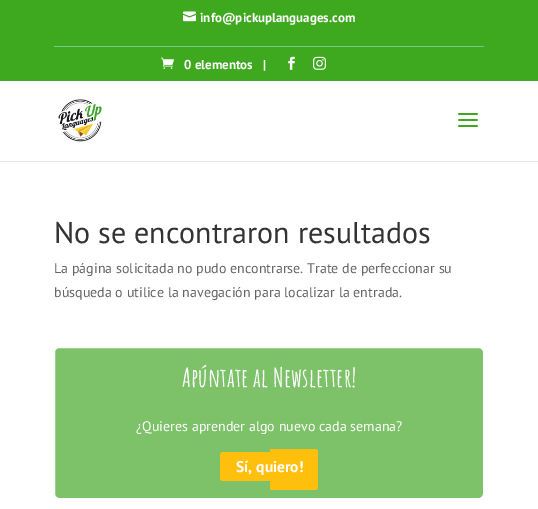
%!PS-Adobe-3.0
%%BoundingBox: 0 0 538 509
%%LanguageLevel: 3
%%Pages: 1
%%EndComments
%%BeginProlog
/m { moveto } bind def
/l { lineto } bind def
/c { curveto } bind def
/h { closepath } bind def
/f { fill } bind def
/S { stroke } bind def
/q { gsave } bind def
/Q { grestore } bind def
/fn { [ exch dup neg 0 0 3 -1 roll 0 0 ] selectfont } def
/tx { moveto show } def
/bx { rectfill } def
/rr { 5 dict begin { /r /h /w /y /x } { exch def } forall
  x r add y moveto x w add y 2 copy h add r arct x w add y h add x 1 index r arct
  x y h add x y r arct x y 2 copy exch w add exch r arct closepath end } def
/im { 5 dict begin { /h /w /y /x /name } { exch def } forall
  gsave x y translate w h scale
  w h 8 [w 0 0 h 0 0] name (r) file false 3 colorimage grestore end } def
%%EndProlog
%%BeginSetup
<< /PageSize [538 509] >> setpagedevice
%%EndSetup
%%Page: 1 1
0 509 translate 1 -1 scale
4 setmiterlimit
1 setgray
0 0 538 509 bx
0.243 0.659 0.122 setrgbcolor
0 0 538 81 bx
(image0.raw) 183 11 13 11 im
/PTSans-Bold 13 fn
1 setgray
(info@pickuplanguages.com) 200 22 tx
0.486 0.776 0.553 setrgbcolor
54 46 430 1 bx
(image1.raw) 161 57 13 12 im
1 setgray
(0 elementos) 184 69 tx
(|) 263 69 tx
(image2.raw) 288 56 7 14 im
(image3.raw) 313 56 13 14 im
0.902 setgray
0 161 538 1 bx
(image4.raw) 58 99 44 43 im
(image5.raw) 458 113 20 14 im
/PTSans-Regular 30 fn
0.2 setgray
(No se encontraron resultados) 54 243 tx
/PTSans-Regular 14 fn
0.4 setgray
(La página solicitada no pudo encontrarse. Trate de perfeccionar su) 54 273 tx
(búsqueda o utilice la navegación para localizar la entrada.) 54 297 tx
0.49 0.761 0.412 setrgbcolor
54.5 347.5 429 151 4.5 rr q f Q
1 setgray
S
/AmaticSC-Bold 26 fn
(Apúntate al Newsletter!) 182 387 tx
/PTSans-Regular 14 fn
(¿Quieres aprender algo nuevo cada semana?) 136 431 tx
1 0.749 0.047 setrgbcolor
223 452 m 302 452 l 302 481 l 223 481 l 221.5 481 220 479.5 220 478 c 220 455 l 220 453.5 221.5 452 223 452 c h f
270 449 m 315 449 l 316.5 449 318 450.5 318 452 c 318 487 l 318 488.5 316.5 490 315 490 c 270 490 l h f
/PTSans-Bold 15.5 fn
1 setgray
(Sí, quiero!) 236 472 tx
showpage
%%EOF
